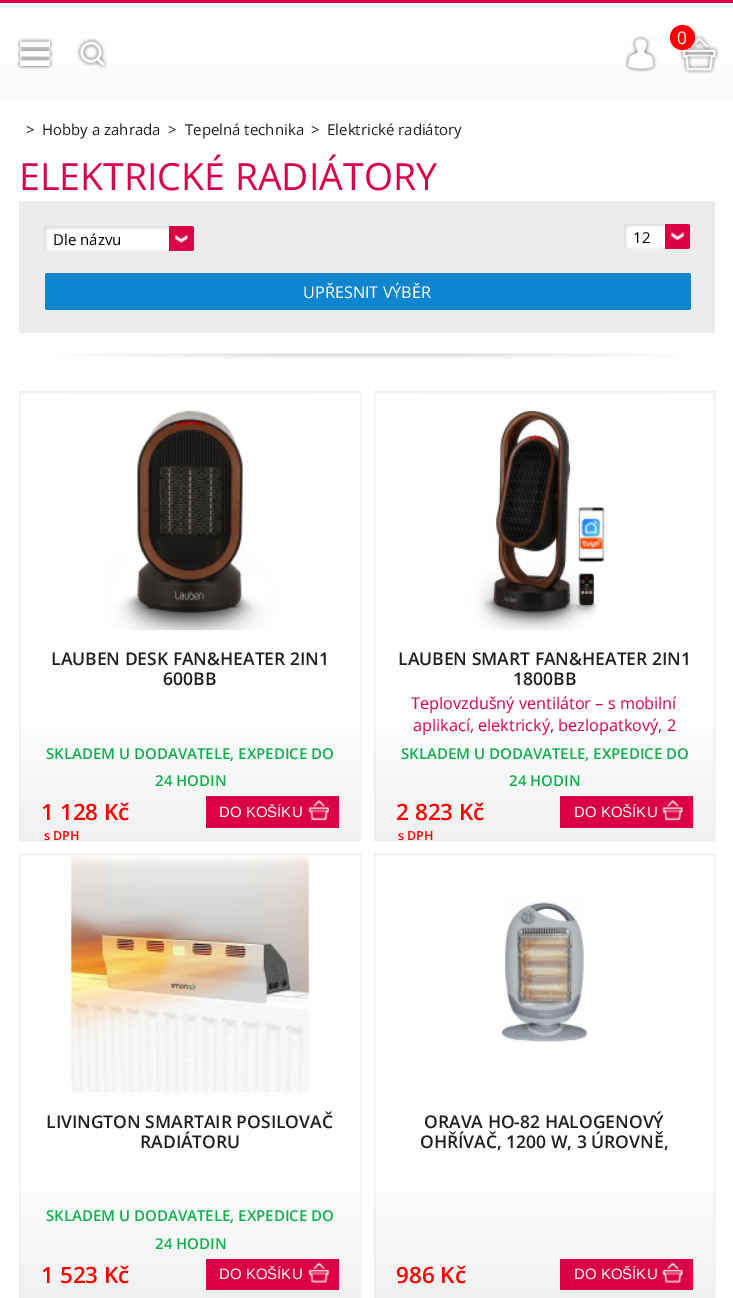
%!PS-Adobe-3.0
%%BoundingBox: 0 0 733 1298
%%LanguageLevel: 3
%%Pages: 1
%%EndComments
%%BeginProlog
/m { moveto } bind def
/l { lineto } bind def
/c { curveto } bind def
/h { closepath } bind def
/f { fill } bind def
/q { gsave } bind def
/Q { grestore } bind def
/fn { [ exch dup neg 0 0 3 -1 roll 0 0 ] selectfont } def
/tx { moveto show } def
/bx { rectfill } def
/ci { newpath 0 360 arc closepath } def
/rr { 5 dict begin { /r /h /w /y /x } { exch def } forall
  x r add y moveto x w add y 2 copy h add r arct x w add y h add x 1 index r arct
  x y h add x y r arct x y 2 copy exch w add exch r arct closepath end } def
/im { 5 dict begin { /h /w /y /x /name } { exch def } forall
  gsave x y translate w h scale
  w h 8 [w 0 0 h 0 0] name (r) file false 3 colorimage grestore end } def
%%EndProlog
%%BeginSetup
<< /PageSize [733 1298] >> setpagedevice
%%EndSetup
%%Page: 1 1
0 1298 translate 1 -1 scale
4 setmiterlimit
1 setgray
0 0 733 1298 bx
q 0 63 m 733 63 l 733 100 l 0 100 l h clip newpath
<< /ShadingType 2 /ColorSpace /DeviceRGB /Coords [367 2.5 367 100] /Extend [true true] /Function << /FunctionType 2 /Domain [0 1] /C0 [1 1 1] /C1 [0.984 0.984 0.988] /N 1 >> >> shfill Q
0.859 0 0.275 setrgbcolor
0 0 733 3 bx
(image0.raw) 17 38 36 31 im
(image1.raw) 77 38 31 31 im
(image2.raw) 625 36 32 36 im
(image3.raw) 679 35 40 39 im
1 0 0 setrgbcolor
682.5 37.5 12.5 ci f
/OpenSans-Regular 17.5 fn
1 setgray
(0) 677 44 tx
/OpenSans-Regular 15 fn
0.122 setgray
(>) 26 135 tx
(Hobby a zahrada) 42 135 tx
(>) 168 135 tx
(Tepelná technika) 185 135 tx
(>) 311 135 tx
(Elektrické radiátory) 327 135 tx
/OpenSans-Regular 37.5 fn
0.859 0 0.275 setrgbcolor
(ELEKTRICKÉ RADIÁTORY) 19 190 tx
0.925 setgray
19 201 696 132 bx
(image5.raw) 52 226 117 25 im
(image4.raw) 43 226 10 25 im
/OpenSans-Regular 15 fn
0 setgray
(Dle názvu) 53 245 tx
0.859 0 0.275 setrgbcolor
169 226 m 191.5 226 l 193 226 194 227 194 228.5 c 194 248.5 l 194 250 193 251 191.5 251 c 169 251 l h f
(image6.raw) 174 234 14 9 im
(image8.raw) 632 224 33 25 im
(image7.raw) 623 223 10 26 im
0 setgray
(12) 633 243 tx
0.859 0 0.275 setrgbcolor
665 224 m 687.5 224 l 689 224 690 225 690 226.5 c 690 246.5 l 690 248 689 249 687.5 249 c 665 249 l h f
(image9.raw) 671 232 13 9 im
0.055 0.522 0.812 setrgbcolor
45 273 646 37 2.5 rr f
/OpenSans-Regular 16.25 fn
1 setgray
(UPŘESNIT VÝBĚR) 303 298 tx
(image10.raw) 42 353 656 6 im
q 19 392 m 361 392 l 361 393 l 19 393 l h clip newpath
<< /ShadingType 2 /ColorSpace /DeviceRGB /Coords [190 -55 190 393] /Extend [true true] /Function << /FunctionType 3 /Domain [0 1] /Functions [<< /FunctionType 2 /Domain [0 1] /C0 [1 1 1] /C1 [1 1 1] /N 1 >> << /FunctionType 2 /Domain [0 1] /C0 [1 1 1] /C1 [0.949 0.941 0.941] /N 1 >>] /Bounds [0.7] /Encode [0 1 0 1] >> >> shfill Q
q 20 728 m 360 728 l 360 840 l 20 840 l h clip newpath
<< /ShadingType 2 /ColorSpace /DeviceRGB /Coords [190 393 190 840] /Extend [true true] /Function << /FunctionType 3 /Domain [0 1] /Functions [<< /FunctionType 2 /Domain [0 1] /C0 [1 1 1] /C1 [1 1 1] /N 1 >> << /FunctionType 2 /Domain [0 1] /C0 [1 1 1] /C1 [0.949 0.941 0.941] /N 1 >>] /Bounds [0.7] /Encode [0 1 0 1] >> >> shfill Q
0.929 0.922 0.922 setrgbcolor
19.5 391.5 341 449 rectstroke
(image11.raw) 65 392 250 238 im
/OpenSans-SemiBold 17.5 fn
0.122 setgray
(LAUBEN DESK FAN&HEATER 2IN1) 51 665 tx
(600BB) 163 685 tx
/OpenSans-SemiBold 22.5 fn
1 0 0 setrgbcolor
(1 128 Kč) 41 820 tx
/OpenSans-SemiBold 12.5 fn
(s DPH) 44 840 tx
0.859 0 0.275 setrgbcolor
206 796 133 32 bx
(image12.raw) 308 799 21 22 im
/LiberationSans-Regular 15 fn
1 setgray
(DO KOŠÍKU) 219 817 tx
/OpenSans-SemiBold 15 fn
0.051 0.694 0.294 setrgbcolor
(SKLADEM U DODAVATELE, EXPEDICE DO) 46 759 tx
(24 HODIN) 155 786 tx
q 374 392 m 715 392 l 715 393 l 374 393 l h clip newpath
<< /ShadingType 2 /ColorSpace /DeviceRGB /Coords [544 -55 544 393] /Extend [true true] /Function << /FunctionType 3 /Domain [0 1] /Functions [<< /FunctionType 2 /Domain [0 1] /C0 [1 1 1] /C1 [1 1 1] /N 1 >> << /FunctionType 2 /Domain [0 1] /C0 [1 1 1] /C1 [0.949 0.941 0.941] /N 1 >>] /Bounds [0.7] /Encode [0 1 0 1] >> >> shfill Q
q 375 728 m 714 728 l 714 840 l 375 840 l h clip newpath
<< /ShadingType 2 /ColorSpace /DeviceRGB /Coords [544 393 544 840] /Extend [true true] /Function << /FunctionType 3 /Domain [0 1] /Functions [<< /FunctionType 2 /Domain [0 1] /C0 [1 1 1] /C1 [1 1 1] /N 1 >> << /FunctionType 2 /Domain [0 1] /C0 [1 1 1] /C1 [0.949 0.941 0.941] /N 1 >>] /Bounds [0.7] /Encode [0 1 0 1] >> >> shfill Q
0.929 0.922 0.922 setrgbcolor
374.5 391.5 340 449 rectstroke
(image13.raw) 419 392 250 238 im
/OpenSans-SemiBold 17.5 fn
0.122 setgray
(LAUBEN SMART FAN&HEATER 2IN1) 398 665 tx
(1800BB) 513 685 tx
/OpenSans-Regular 16.25 fn
0.859 0 0.275 setrgbcolor
(Teplovzdušný ventilátor – s mobilní) 411 709 tx
(aplikací, elektrický, bezlopatkový, 2) 413 731 tx
/OpenSans-SemiBold 22.5 fn
1 0 0 setrgbcolor
(2 823 Kč) 396 820 tx
/OpenSans-SemiBold 12.5 fn
(s DPH) 398 840 tx
0.859 0 0.275 setrgbcolor
560 796 133 32 bx
(image14.raw) 662 799 21 22 im
/LiberationSans-Regular 15 fn
1 setgray
(DO KOŠÍKU) 574 817 tx
/OpenSans-SemiBold 15 fn
0.051 0.694 0.294 setrgbcolor
(SKLADEM U DODAVATELE, EXPEDICE DO) 401 759 tx
(24 HODIN) 509 786 tx
q 20 1191 m 360 1191 l 360 1298 l 20 1298 l h clip newpath
<< /ShadingType 2 /ColorSpace /DeviceRGB /Coords [190 855 190 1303] /Extend [true true] /Function << /FunctionType 3 /Domain [0 1] /Functions [<< /FunctionType 2 /Domain [0 1] /C0 [1 1 1] /C1 [1 1 1] /N 1 >> << /FunctionType 2 /Domain [0 1] /C0 [1 1 1] /C1 [0.949 0.941 0.941] /N 1 >>] /Bounds [0.7] /Encode [0 1 0 1] >> >> shfill Q
0.929 0.922 0.922 setrgbcolor
19.5 854.5 341 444 rectstroke
(image15.raw) 65 855 246 238 im
/OpenSans-SemiBold 17.5 fn
0.122 setgray
(LIVINGTON SMARTAIR POSILOVAČ) 46 1128 tx
(RADIÁTORU) 140 1148 tx
/OpenSans-SemiBold 22.5 fn
1 0 0 setrgbcolor
(1 523 Kč) 41 1283 tx
0.859 0 0.275 setrgbcolor
206 1259 133 31 bx
(image16.raw) 308 1262 21 21 im
/LiberationSans-Regular 15 fn
1 setgray
(DO KOŠÍKU) 219 1279 tx
/OpenSans-SemiBold 15 fn
0.051 0.694 0.294 setrgbcolor
(SKLADEM U DODAVATELE, EXPEDICE DO) 46 1221 tx
(24 HODIN) 155 1249 tx
q 375 1191 m 714 1191 l 714 1298 l 375 1298 l h clip newpath
<< /ShadingType 2 /ColorSpace /DeviceRGB /Coords [544 855 544 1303] /Extend [true true] /Function << /FunctionType 3 /Domain [0 1] /Functions [<< /FunctionType 2 /Domain [0 1] /C0 [1 1 1] /C1 [1 1 1] /N 1 >> << /FunctionType 2 /Domain [0 1] /C0 [1 1 1] /C1 [0.949 0.941 0.941] /N 1 >>] /Bounds [0.7] /Encode [0 1 0 1] >> >> shfill Q
0.929 0.922 0.922 setrgbcolor
374.5 854.5 340 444 rectstroke
(image17.raw) 501 895 87 148 im
/OpenSans-SemiBold 17.5 fn
0.122 setgray
(ORAVA HO-82 HALOGENOVÝ) 424 1128 tx
(OHŘÍVAČ, 1200 W, 3 ÚROVNĚ,) 420 1148 tx
/OpenSans-SemiBold 22.5 fn
1 0 0 setrgbcolor
(986 Kč) 396 1283 tx
0.859 0 0.275 setrgbcolor
560 1259 133 31 bx
(image18.raw) 662 1262 21 21 im
/LiberationSans-Regular 15 fn
1 setgray
(DO KOŠÍKU) 574 1279 tx
showpage
%%EOF
